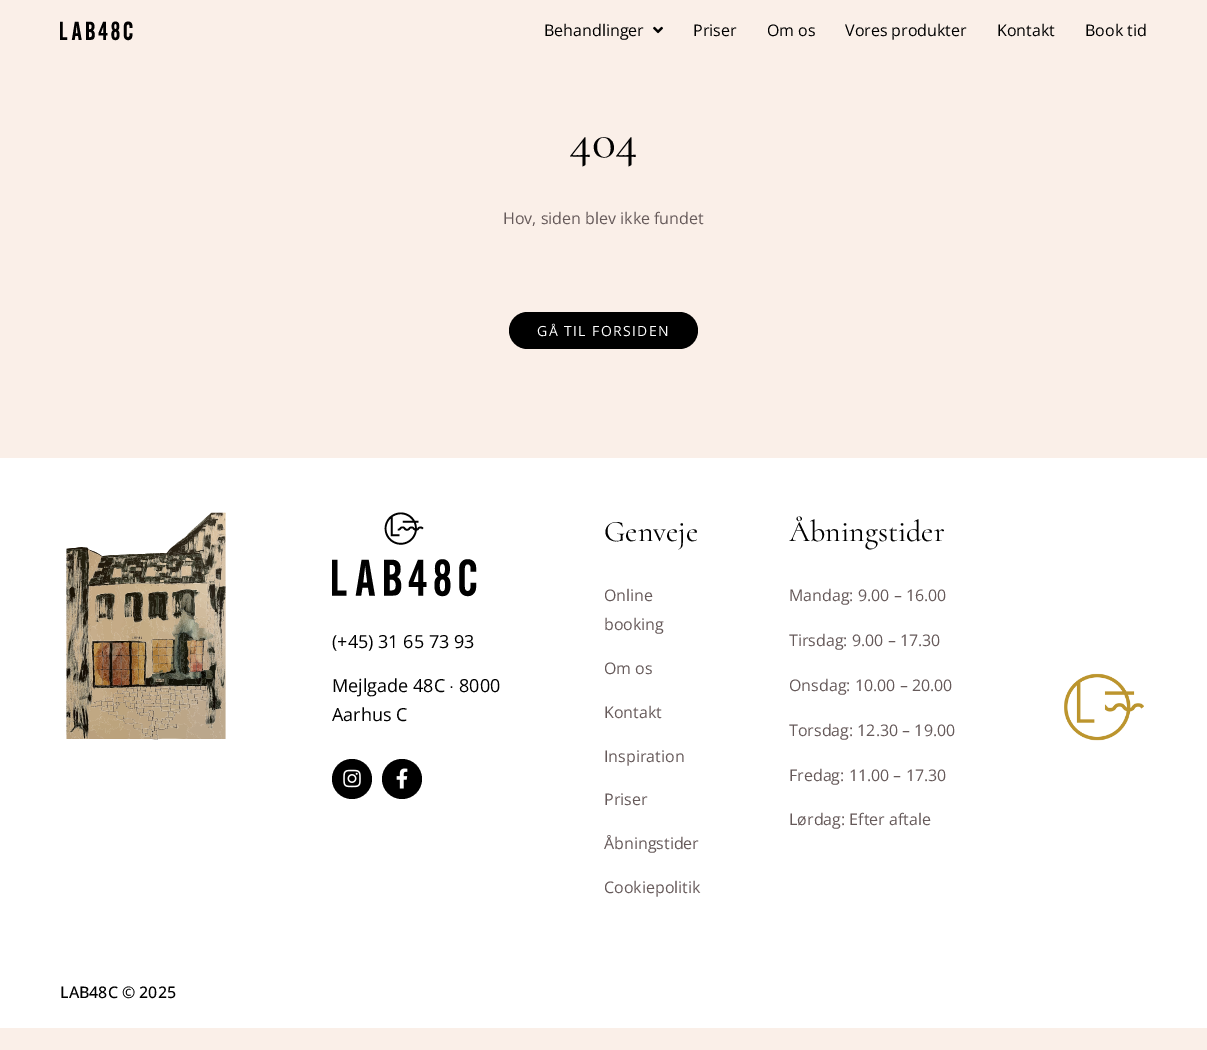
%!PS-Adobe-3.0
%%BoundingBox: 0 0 1207 1050
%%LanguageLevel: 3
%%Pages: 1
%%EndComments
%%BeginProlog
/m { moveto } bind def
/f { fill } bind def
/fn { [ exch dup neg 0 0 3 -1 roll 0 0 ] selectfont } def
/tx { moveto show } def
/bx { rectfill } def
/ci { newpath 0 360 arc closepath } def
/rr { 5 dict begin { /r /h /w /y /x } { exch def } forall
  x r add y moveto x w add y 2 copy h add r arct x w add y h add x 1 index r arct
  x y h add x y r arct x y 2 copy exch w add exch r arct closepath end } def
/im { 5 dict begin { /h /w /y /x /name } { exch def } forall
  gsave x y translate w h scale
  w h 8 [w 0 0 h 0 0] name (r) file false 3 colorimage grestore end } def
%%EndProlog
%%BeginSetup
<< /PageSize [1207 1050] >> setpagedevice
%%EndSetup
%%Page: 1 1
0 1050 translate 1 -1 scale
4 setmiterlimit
0.98 0.937 0.91 setrgbcolor
0 0 1207 1050 bx
(image0.raw) 60 21 73 20 im
/OpenSans-Regular 16 fn
0 setgray
(Behandlinger) 544 36 tx
(image1.raw) 653 26 10 8 im
(Priser) 693 36 tx
(Om os) 767 36 tx
(Vores produkter) 845 36 tx
(Kontakt) 997 36 tx
(Book tid) 1085 36 tx
/Cormorant-Regular 50 fn
(404) 569 157 tx
/OpenSans-Regular 16 fn
0.4 0.353 0.353 setrgbcolor
(Hov, siden blev ikke fundet) 503 224 tx
0 setgray
509 312 189 37 18.5 rr f
/OpenSans-Regular 14 fn
1 setgray
537 336 m 1.4 0 (GÅ TIL FORSIDEN) ashow
0 458 1207 570 bx
(image2.raw) 66 512 160 228 im
(image3.raw) 332 512 145 85 im
/OpenSans-Regular 18 fn
0 setgray
(\(+45\) 31 65 73 93) 332 648 tx
(Mejlgade 48C) 332 692 tx
/LiberationSans-Regular 18 fn
(∙) 449 692 tx
/OpenSans-Regular 18 fn
(8000) 459 692 tx
(Aarhus C) 332 721 tx
352 779 20 ci f
(image4.raw) 343 769 18 19 im
402 779 20 ci f
(image5.raw) 396 768 12 21 im
/Cormorant-Regular 30 fn
(Genveje) 604 541 tx
/OpenSans-Regular 16 fn
0.4 0.353 0.353 setrgbcolor
(Online) 604 601 tx
(booking) 604 630 tx
(Om os) 604 674 tx
(Kontakt) 604 718 tx
(Inspiration) 604 762 tx
(Priser) 604 805 tx
(Åbningstider) 604 849 tx
(Cookiepolitik) 604 893 tx
/Cormorant-Regular 30 fn
0 setgray
(Åbningstider) 789 541 tx
/OpenSans-Regular 16 fn
0.4 0.353 0.353 setrgbcolor
(Mandag: 9.00 – 16.00) 789 601 tx
(Tirsdag: 9.00 – 17.30) 789 646 tx
(Onsdag: 10.00 – 20.00) 789 691 tx
(Torsdag: 12.30 – 19.00) 789 736 tx
(Fredag: 11.00 – 17.30) 789 781 tx
(Lørdag: Efter aftale) 789 825 tx
(image6.raw) 1064 673 80 68 im
/OpenSans-Medium 16 fn
0 setgray
(LAB48C © 2025) 60 998 tx
showpage
%%EOF
